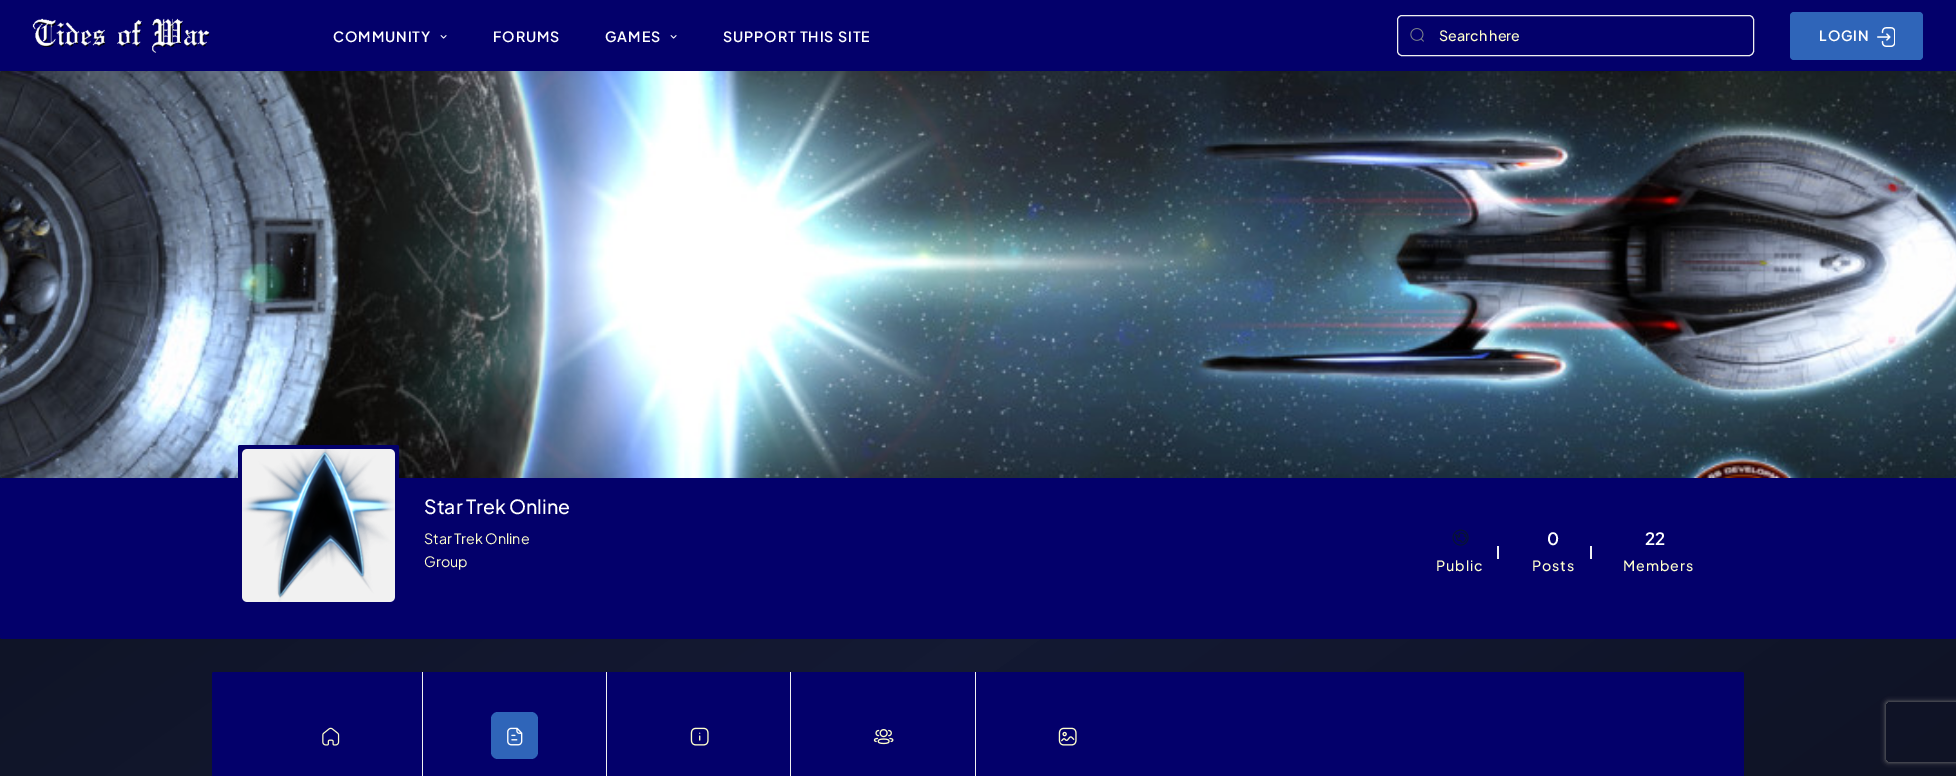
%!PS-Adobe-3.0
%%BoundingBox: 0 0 1956 776
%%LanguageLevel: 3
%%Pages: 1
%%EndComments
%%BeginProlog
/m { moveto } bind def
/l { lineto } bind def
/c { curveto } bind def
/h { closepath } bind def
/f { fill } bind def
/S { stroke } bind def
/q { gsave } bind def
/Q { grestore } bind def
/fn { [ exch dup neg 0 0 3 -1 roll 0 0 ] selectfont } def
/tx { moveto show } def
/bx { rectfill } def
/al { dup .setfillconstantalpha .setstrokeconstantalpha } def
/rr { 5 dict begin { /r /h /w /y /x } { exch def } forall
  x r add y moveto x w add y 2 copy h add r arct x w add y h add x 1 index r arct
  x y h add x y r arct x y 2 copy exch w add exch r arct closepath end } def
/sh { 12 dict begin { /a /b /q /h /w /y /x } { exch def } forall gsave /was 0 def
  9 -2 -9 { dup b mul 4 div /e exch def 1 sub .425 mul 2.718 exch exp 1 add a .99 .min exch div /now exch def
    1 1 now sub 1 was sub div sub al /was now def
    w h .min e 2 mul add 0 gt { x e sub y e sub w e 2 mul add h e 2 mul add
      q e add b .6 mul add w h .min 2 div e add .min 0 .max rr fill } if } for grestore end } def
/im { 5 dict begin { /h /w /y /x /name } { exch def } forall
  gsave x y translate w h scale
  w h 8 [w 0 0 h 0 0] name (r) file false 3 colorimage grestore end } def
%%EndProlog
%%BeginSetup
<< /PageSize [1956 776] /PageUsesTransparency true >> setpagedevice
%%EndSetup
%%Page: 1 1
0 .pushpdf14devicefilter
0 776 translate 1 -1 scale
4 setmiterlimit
1 setgray
0 0 1956 776 bx
q 0 71 m 1956 71 l 1956 776 l 0 776 l h clip newpath
<< /ShadingType 2 /ColorSpace /DeviceRGB /Coords [297 -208 1659 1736] /Extend [true true] /Function << /FunctionType 3 /Domain [0 1] /Functions [<< /FunctionType 2 /Domain [0 1] /C0 [0.043 0.059 0.11] /C1 [0.078 0.102 0.2] /N 1 >> << /FunctionType 2 /Domain [0 1] /C0 [0.078 0.102 0.2] /C1 [0.039 0.051 0.098] /N 1 >>] /Bounds [0.45] /Encode [0 1 0 1] >> >> shfill Q
0.012 0 0.42 setrgbcolor
0 0 1956 71 bx
(image0.raw) 32 18 178 35 im
/PlusJakartaSans-SemiBold 14.25 fn
1 setgray
333 42 m 0.9 0 (COMMUNITY) ashow
(image1.raw) 440 35 7 4 im
493 42 m 0.9 0 (FORUMS) ashow
605 42 m 0.9 0 (GAMES) ashow
(image1.raw) 670 35 7 4 im
723 42 m 0.9 0 (SUPPORT THIS SITE) ashow
0.945 setgray
1397.5 15.5 356 40 4.5 rr S
(image2.raw) 1410 28 14 14 im
/PlusJakartaSans-Medium 14.25 fn
1 1 0.8 setrgbcolor
(Search here) 1439 41 tx
0.184 0.396 0.725 setrgbcolor
1790 12 133 48 4 rr f
/PlusJakartaSans-SemiBold 14.25 fn
1 setgray
1819 41 m 0.9 0 (LOGIN) ashow
(image3.raw) 1877 27 18 20 im
(image4.raw) 0 71 1956 407 im
0.012 0 0.42 setrgbcolor
0 478 1956 161 2 rr f
238 445 161 161 2 rr f
0.945 setgray
242 449 153 153 5 rr f
(image5.raw) 242 449 153 153 im
/PlusJakartaSans-Medium 19.5 fn
1 setgray
(Star Trek Online) 424 514 tx
/PlusJakartaSans-Regular 14.25 fn
1 1 0.8 setrgbcolor
(Star Trek Online) 424 544 tx
(Group) 424 567 tx
(image6.raw) 1452 529 17 17 im
0.945 setgray
1497 546 2 13 bx
/PlusJakartaSans-Medium 14.25 fn
1 1 0.8 setrgbcolor
1436 571 m 0.9 0 (Public) ashow
/PlusJakartaSans-SemiBold 17 fn
1 setgray
(0) 1547 545 tx
0.945 setgray
1590 546 2 13 bx
/PlusJakartaSans-Medium 14.25 fn
1 1 0.8 setrgbcolor
1532 571 m 0.9 0 (Posts) ashow
/PlusJakartaSans-SemiBold 17 fn
1 setgray
(22) 1645 545 tx
/PlusJakartaSans-Medium 14.25 fn
1 1 0.8 setrgbcolor
1623 571 m 0.9 0 (Members) ashow
0.012 0 0.42 setrgbcolor
212 672 1532 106 2 rr f
(image7.raw) 322 727 18 19 im
0.945 setgray
422 672 1 104 bx
0.184 0.396 0.725 setrgbcolor
491 712 47 47 7 rr f
(image8.raw) 507 727 16 19 im
0.945 setgray
606 672 1 104 bx
(image9.raw) 690 727 19 19 im
790 672 1 104 bx
(image10.raw) 873 729 21 16 im
975 672 1 104 bx
(image11.raw) 1058 727 19 19 im
q
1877 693 m 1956 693 l 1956 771 l 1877 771 l h 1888 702 m 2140 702 l 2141 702 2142 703 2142 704 c 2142 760 l 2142 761 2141 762 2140 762 c 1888 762 l 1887 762 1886 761 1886 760 c 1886 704 l 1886 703 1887 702 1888 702 c h eoclip newpath
0.502 setgray
1886 702 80 60 2 2.5 1 sh
Q
.poppdf14devicefilter showpage
%%EOF
